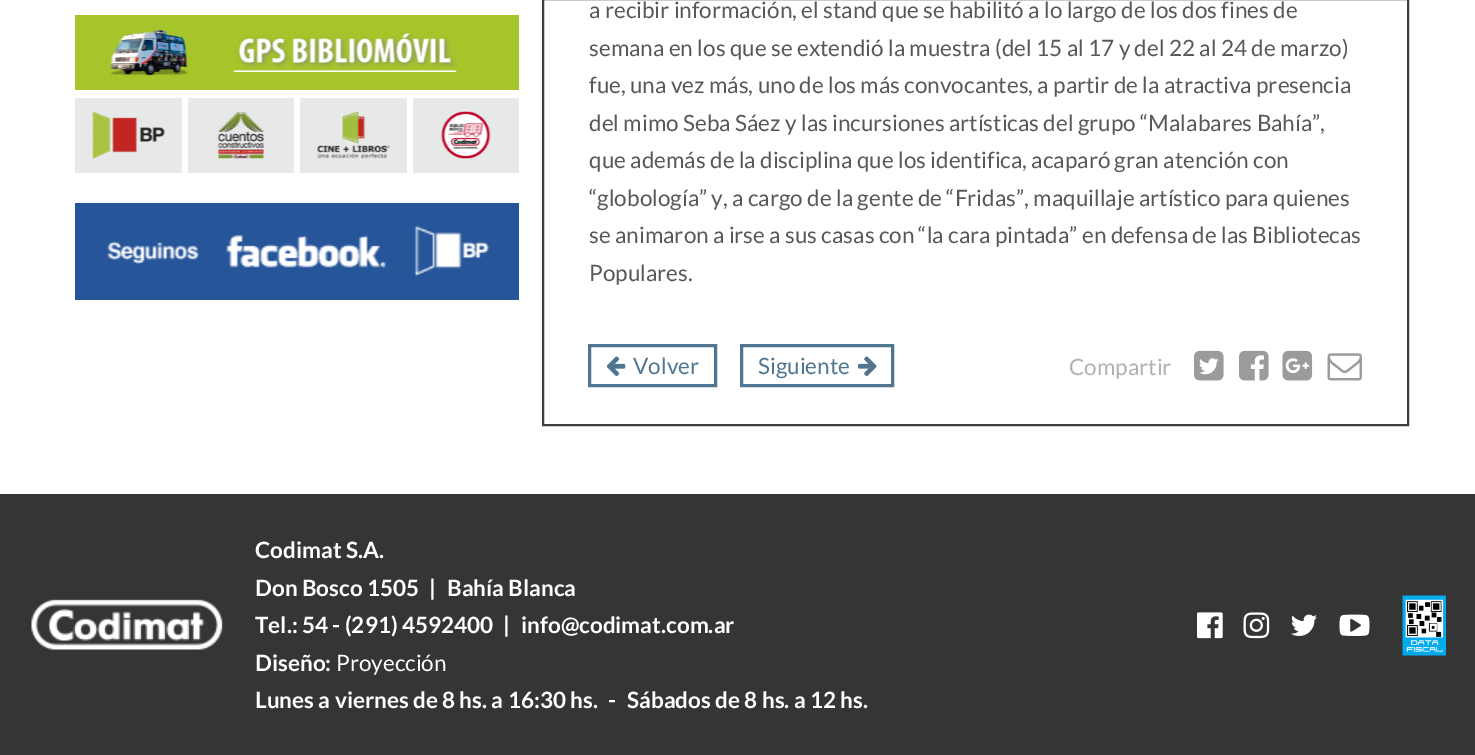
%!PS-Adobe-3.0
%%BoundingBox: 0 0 1475 755
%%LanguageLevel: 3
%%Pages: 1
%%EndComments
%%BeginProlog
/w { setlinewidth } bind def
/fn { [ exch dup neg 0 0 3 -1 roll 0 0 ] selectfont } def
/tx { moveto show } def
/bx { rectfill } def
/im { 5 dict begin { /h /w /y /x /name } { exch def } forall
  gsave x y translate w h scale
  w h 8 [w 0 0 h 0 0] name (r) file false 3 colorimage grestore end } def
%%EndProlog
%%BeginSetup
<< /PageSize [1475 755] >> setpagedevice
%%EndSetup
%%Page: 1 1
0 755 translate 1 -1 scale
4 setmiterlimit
1 setgray
0 0 1475 755 bx
0.647 0.773 0.169 setrgbcolor
75 15 444 75 bx
(image0.raw) 110 30 78 46 im
(image1.raw) 233 33 224 39 im
0.906 0.91 0.91 setrgbcolor
75 98 107 75 bx
(image2.raw) 92 111 73 48 im
188 98 106 75 bx
(image3.raw) 217 111 48 48 im
300 98 107 75 bx
(image4.raw) 317 111 73 48 im
413 98 106 75 bx
(image5.raw) 441 111 50 48 im
0.149 0.333 0.604 setrgbcolor
75 203 444 97 bx
(image6.raw) 107 241 92 24 im
(image7.raw) 226 235 161 33 im
(image8.raw) 414 226 76 51 im
0.247 0.243 0.243 setrgbcolor
2 w
543 -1 865 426 rectstroke
/Lato-Regular 22.5 fn
0.345 0.345 0.341 setrgbcolor
(a recibir información, el stand que se habilitó a lo largo de los dos fines de) 589 18 tx
(semana en los que se extendió la muestra \(del 15 al 17 y del 22 al 24 de marzo\)) 589 56 tx
(fue, una vez más, uno de los más convocantes, a partir de la atractiva presencia) 589 93 tx
(del mimo Seba Sáez y las incursiones artísticas del grupo “Malabares Bahía”,) 589 131 tx
(que además de la disciplina que los identifica, acaparó gran atención con) 589 168 tx
(“globología” y, a cargo de la gente de “Fridas”, maquillaje artístico para quienes) 589 206 tx
(se animaron a irse a sus casas con “la cara pintada” en defensa de las Bibliotecas) 589 243 tx
(Populares.) 589 281 tx
0.314 0.459 0.565 setrgbcolor
3 w
589.5 345.5 126 40 rectstroke
(image9.raw) 606 356 20 20 im
(Volver) 633 374 tx
741.5 345.5 151 40 rectstroke
(Siguiente) 758 374 tx
(image10.raw) 858 356 19 20 im
0.694 0.694 0.69 setrgbcolor
(Compartir) 1069 375 tx
(image11.raw) 1194 350 30 31 im
(image12.raw) 1239 350 30 31 im
(image13.raw) 1282 350 31 31 im
(image14.raw) 1327 353 35 28 im
0.208 setgray
0 494 1475 261 bx
(image15.raw) 31 599 192 51 im
/Lato-Bold 22.5 fn
1 setgray
(Codimat S.A.) 255 558 tx
(Don Bosco 1505) 255 596 tx
(|) 429 596 tx
(Bahía Blanca) 447 596 tx
(Tel.: 54 - \(291\) 4592400) 255 633 tx
(|) 503 633 tx
(info@codimat.com.ar) 521 633 tx
(Diseño:) 255 671 tx
/Lato-Regular 22.5 fn
(Proyección) 336 671 tx
/Lato-Bold 22.5 fn
(Lunes a viernes de 8 hs. a 16:30 hs.) 255 708 tx
(-) 608 708 tx
(Sábados de 8 hs. a 12 hs.) 627 708 tx
(image16.raw) 1197 612 26 27 im
(image17.raw) 1243 612 27 27 im
(image18.raw) 1291 614 26 22 im
(image19.raw) 1339 614 31 22 im
(image20.raw) 1402 595 44 61 im
showpage
%%EOF
